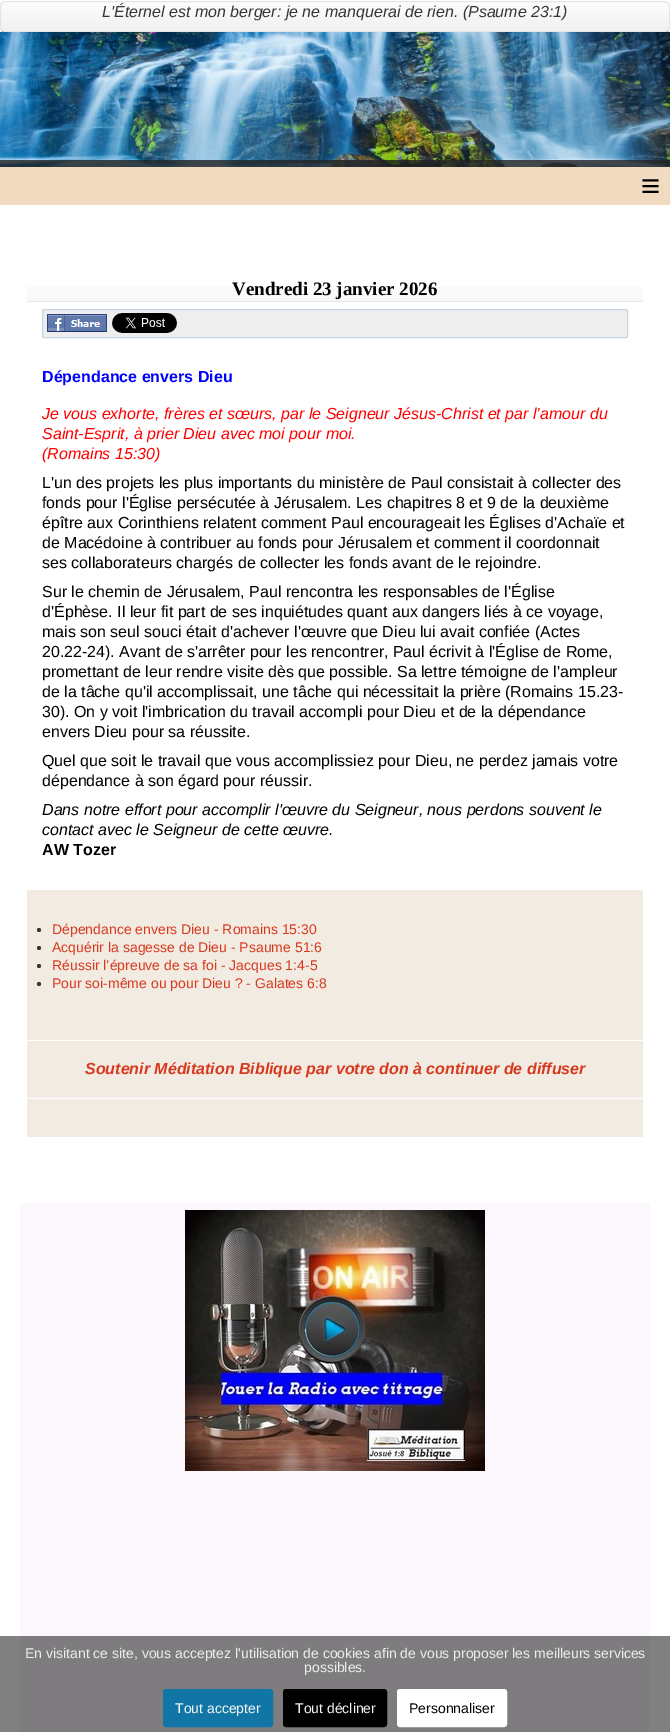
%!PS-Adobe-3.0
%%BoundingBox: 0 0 670 1732
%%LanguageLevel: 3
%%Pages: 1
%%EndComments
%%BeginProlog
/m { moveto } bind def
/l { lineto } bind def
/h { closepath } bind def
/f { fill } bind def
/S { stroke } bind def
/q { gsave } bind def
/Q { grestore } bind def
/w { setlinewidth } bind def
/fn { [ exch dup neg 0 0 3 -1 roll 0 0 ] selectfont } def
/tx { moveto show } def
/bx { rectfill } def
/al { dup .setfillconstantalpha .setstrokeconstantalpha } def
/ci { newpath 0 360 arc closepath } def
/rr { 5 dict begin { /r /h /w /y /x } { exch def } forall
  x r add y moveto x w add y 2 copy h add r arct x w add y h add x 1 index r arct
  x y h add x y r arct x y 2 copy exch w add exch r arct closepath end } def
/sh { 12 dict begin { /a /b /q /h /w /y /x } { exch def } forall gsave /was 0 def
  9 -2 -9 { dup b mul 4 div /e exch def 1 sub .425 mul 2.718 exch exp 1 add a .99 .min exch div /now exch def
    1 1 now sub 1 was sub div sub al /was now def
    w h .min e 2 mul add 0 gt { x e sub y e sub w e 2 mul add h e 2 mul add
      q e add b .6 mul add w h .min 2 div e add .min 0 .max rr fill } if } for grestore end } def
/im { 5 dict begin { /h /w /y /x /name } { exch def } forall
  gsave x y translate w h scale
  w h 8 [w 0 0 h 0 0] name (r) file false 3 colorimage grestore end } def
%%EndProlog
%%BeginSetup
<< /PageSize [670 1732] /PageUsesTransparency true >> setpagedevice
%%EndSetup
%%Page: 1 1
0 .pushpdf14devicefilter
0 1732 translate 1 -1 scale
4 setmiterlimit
1 setgray
0 0 670 1732 bx
0.502 setgray
0 1636 670 96 bx
0.451 setgray
1 4 668 29 4 0.5 1 sh
q
0 1 670 31 5 rr clip newpath
q 0 2 m 670 2 l 670 31 l 0 31 l h clip newpath
<< /ShadingType 2 /ColorSpace /DeviceRGB /Coords [1 2 1 31] /Extend [true true] /Function << /FunctionType 2 /Domain [0 1] /C0 [0.992 0.992 0.992] /C1 [0.941 0.941 0.941] /N 1 >> >> shfill Q
Q
0.898 setgray
0.5 1.5 669 30 4.5 rr S
/LiberationSans-Italic 16 fn
0.212 setgray
(L'Éternel est mon berger: je ne manquerai de rien. \(Psaume 23:1\)) 102 17 tx
(image0.raw) 0 32 670 135 im
0.8 al
0.133 setgray
0 160 670 7 bx
1 al
0.941 0.859 0.753 setrgbcolor
0 167 670 38 bx
/LiberationSans-Regular 33 fn
0 setgray
(≡) 641 197 tx
q 27 286 m 643 286 l 643 301 l 27 301 l h clip newpath
<< /ShadingType 2 /ColorSpace /DeviceRGB /Coords [27 277 27 301] /Extend [true true] /Function << /FunctionType 2 /Domain [0 1] /C0 [1 1 1] /C1 [0.973 0.973 0.973] /N 1 >> >> shfill Q
0.91 setgray
27 301 616 1 bx
/LiberationSerif-Bold 19 fn
0 setgray
(Vendredi 23 janvier 2026) 232 295 tx
0.933 setgray
42.5 309.5 585 28 1.5 rr q f Q
0.792 0.831 0.906 setrgbcolor
S
(image1.raw) 47 314 60 18 im
(image2.raw) 112 313 65 20 im
/LiberationSans-Bold 16 fn
0 0 1 setrgbcolor
(Dépendance envers Dieu) 42 382 tx
/LiberationSans-Italic 16 fn
1 0 0 setrgbcolor
(Je vous exhorte, frères et sœurs, par le Seigneur Jésus-Christ et par l’amour du) 42 419 tx
(Saint-Esprit, à prier Dieu avec moi pour moi.) 42 439 tx
(\(Romains 15:30\)) 42 459 tx
/LiberationSans-Regular 16 fn
0 setgray
(L'un des projets les plus importants du ministère de Paul consistait à collecter des) 42 488 tx
(fonds pour l'Église persécutée à Jérusalem. Les chapitres 8 et 9 de la deuxième) 42 508 tx
(épître aux Corinthiens relatent comment Paul encourageait les Églises d'Achaïe et) 42 528 tx
(de Macédoine à contribuer au fonds pour Jérusalem et comment il coordonnait) 42 548 tx
(ses collaborateurs chargés de collecter les fonds avant de le rejoindre.) 42 568 tx
(Sur le chemin de Jérusalem, Paul rencontra les responsables de l'Église) 42 597 tx
(d'Éphèse. Il leur fit part de ses inquiétudes quant aux dangers liés à ce voyage,) 42 617 tx
(mais son seul souci était d'achever l'œuvre que Dieu lui avait confiée \(Actes) 42 637 tx
(20.22-24\). Avant de s'arrêter pour les rencontrer, Paul écrivit à l'Église de Rome,) 42 657 tx
(promettant de leur rendre visite dès que possible. Sa lettre témoigne de l'ampleur) 42 677 tx
(de la tâche qu'il accomplissait, une tâche qui nécessitait la prière \(Romains 15.23-) 42 697 tx
(30\). On y voit l'imbrication du travail accompli pour Dieu et de la dépendance) 42 717 tx
(envers Dieu pour sa réussite.) 42 737 tx
(Quel que soit le travail que vous accomplissiez pour Dieu, ne perdez jamais votre) 42 766 tx
(dépendance à son égard pour réussir.) 42 786 tx
/LiberationSans-Italic 16 fn
(Dans notre effort pour accomplir l'œuvre du Seigneur, nous perdons souvent le) 42 815 tx
(contact avec le Seigneur de cette œuvre.) 42 835 tx
/LiberationSans-Bold 16 fn
(AW Tozer) 42 855 tx
0.949 0.922 0.882 setrgbcolor
27 890 616 247 bx
0.212 setgray
39 930 2 ci f
/LiberationSans-Regular 14 fn
0.843 0.224 0.122 setrgbcolor
(Dépendance envers Dieu - Romains 15:30) 52 934 tx
0.212 setgray
39 948 2 ci f
0.843 0.224 0.122 setrgbcolor
(Acquérir la sagesse de Dieu - Psaume 51:6) 52 952 tx
0.212 setgray
39 966 2 ci f
0.843 0.224 0.122 setrgbcolor
(Réussir l’épreuve de sa foi - Jacques 1:4-5) 52 970 tx
0.212 setgray
39 984 2 ci f
0.843 0.224 0.122 setrgbcolor
(Pour soi-même ou pour Dieu ? - Galates 6:8) 52 988 tx
0.933 setgray
27 1039 616 1 bx
1 setgray
27 1040 616 1 bx
/LiberationSans-BoldItalic 16 fn
0.843 0.224 0.122 setrgbcolor
(Soutenir Méditation Biblique par votre don à continuer de diffuser) 85 1074 tx
0.933 setgray
27 1097 616 1 bx
1 setgray
27 1098 616 1 bx
0.988 0.969 0.988 setrgbcolor
20 1203 630 433 bx
0.494 0.486 0.494 setrgbcolor
20 1636 630 96 bx
(image3.raw) 185 1210 300 261 im
/LiberationSans-Regular 14 fn
0.933 setgray
(En visitant ce site, vous acceptez l'utilisation de cookies afin de vous proposer les meilleurs services) 25 1658 tx
(possibles.) 304 1672 tx
0.067 0.463 0.651 setrgbcolor
164 1690 108 36 2 rr q f Q
2 w
S
0.961 setgray
(Tout accepter) 175 1713 tx
0 setgray
284 1690 102 36 2 rr q f Q
S
0.961 setgray
(Tout décliner) 295 1713 tx
1 setgray
398 1690 108 36 2 rr q f Q
S
0 setgray
(Personnaliser) 409 1713 tx
.poppdf14devicefilter showpage
%%EOF
